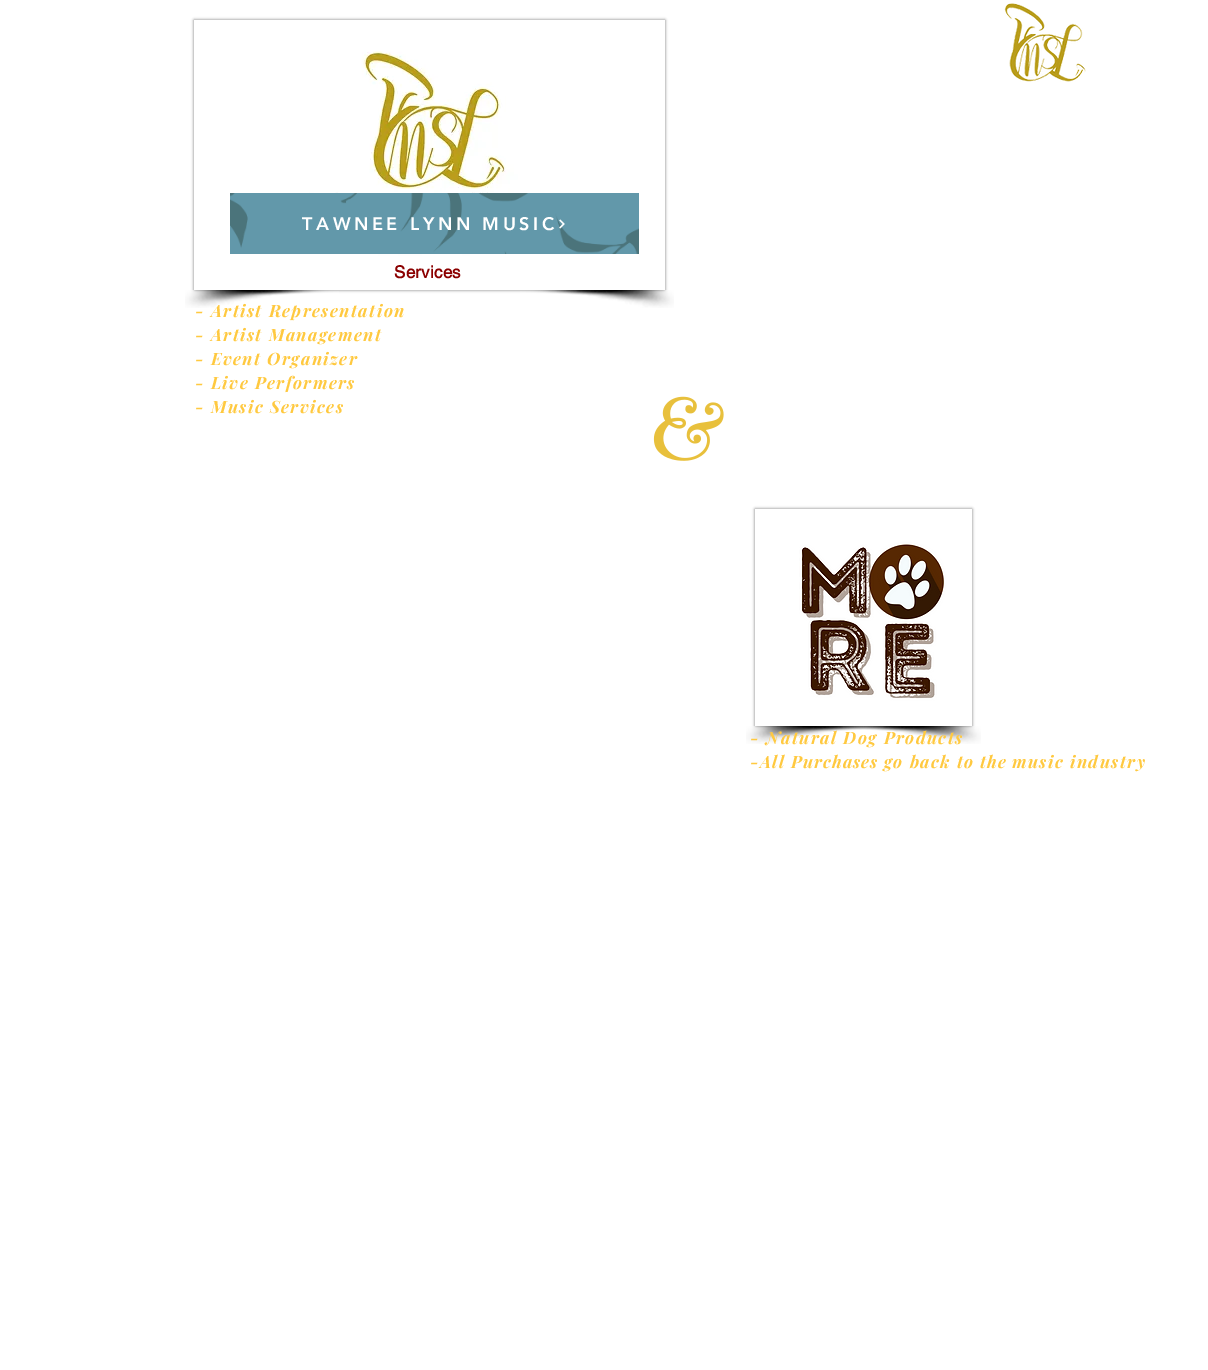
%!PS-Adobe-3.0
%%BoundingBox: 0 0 1208 1370
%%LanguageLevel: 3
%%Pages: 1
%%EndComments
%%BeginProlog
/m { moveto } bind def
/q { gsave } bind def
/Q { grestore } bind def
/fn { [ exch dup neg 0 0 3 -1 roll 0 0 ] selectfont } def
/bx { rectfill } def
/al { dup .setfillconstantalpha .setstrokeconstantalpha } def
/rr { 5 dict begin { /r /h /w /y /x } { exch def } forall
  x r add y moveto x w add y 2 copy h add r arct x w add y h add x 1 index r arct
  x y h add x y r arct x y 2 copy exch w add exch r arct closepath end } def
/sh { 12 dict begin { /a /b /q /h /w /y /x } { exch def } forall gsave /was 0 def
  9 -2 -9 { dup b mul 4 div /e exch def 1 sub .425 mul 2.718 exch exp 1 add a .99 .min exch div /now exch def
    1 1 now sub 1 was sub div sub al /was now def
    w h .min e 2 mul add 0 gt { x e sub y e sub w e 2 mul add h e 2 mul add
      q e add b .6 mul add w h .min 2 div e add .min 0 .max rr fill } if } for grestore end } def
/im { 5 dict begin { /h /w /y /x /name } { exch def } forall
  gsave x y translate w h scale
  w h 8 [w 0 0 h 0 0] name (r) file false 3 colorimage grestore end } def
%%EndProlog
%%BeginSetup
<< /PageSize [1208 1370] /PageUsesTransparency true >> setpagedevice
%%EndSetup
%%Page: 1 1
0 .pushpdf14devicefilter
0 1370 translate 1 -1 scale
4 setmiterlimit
1 setgray
0 0 1208 1370 bx
0 setgray
194 20 471 270 0 1.5 0.5 sh
(image0.raw) 194 20 471 270 im
(image1.raw) 185 290 154 18 im
(image2.raw) 520 290 154 18 im
(image3.raw) 1004 3 82 79 im
0.384 0.596 0.667 setrgbcolor
230 193 409 61 bx
(image4.raw) 230 193 409 61 im
q
302 213 255 22 rectclip
/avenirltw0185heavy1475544-Black 18 fn
1 setgray
302 230 m 3.6 0 (TAWNEE LYNN MUSIC) ashow
Q
(image5.raw) 559 219 6 10 im
/helvetica-Bold 17 fn
0.545 0 0 setrgbcolor
394 278 m 0.25 0 (Services) ashow
/PlayfairDisplay-BoldItalic 17 fn
1 0.788 0.251 setrgbcolor
195 317 m 1.4 0 (- Artist Representation) ashow
195 341 m 1.4 0 (- Artist Management) ashow
195 365 m 1.4 0 (- Event Organizer) ashow
195 389 m 1.4 0 (- Live Performers) ashow
195 413 m 1.4 0 (- Music Services) ashow
(image6.raw) 653 396 71 65 im
0 setgray
755 509 217 217 0 1.5 0.5 sh
(image7.raw) 755 509 217 217 im
(image1.raw) 746 726 154 18 im
(image8.raw) 844 726 137 18 im
1 0.788 0.251 setrgbcolor
750 744 m 1.4 0 (- Natural Dog Products) ashow
750 768 m 1.4 0 (-All) ashow
791 768 m 1 0 (Purchases) ashow
884 768 m 1.4 0 (go back to) ashow
980 768 m 1 0 (the) ashow
1012 768 m 1.4 0 (music industry) ashow
.poppdf14devicefilter showpage
%%EOF
